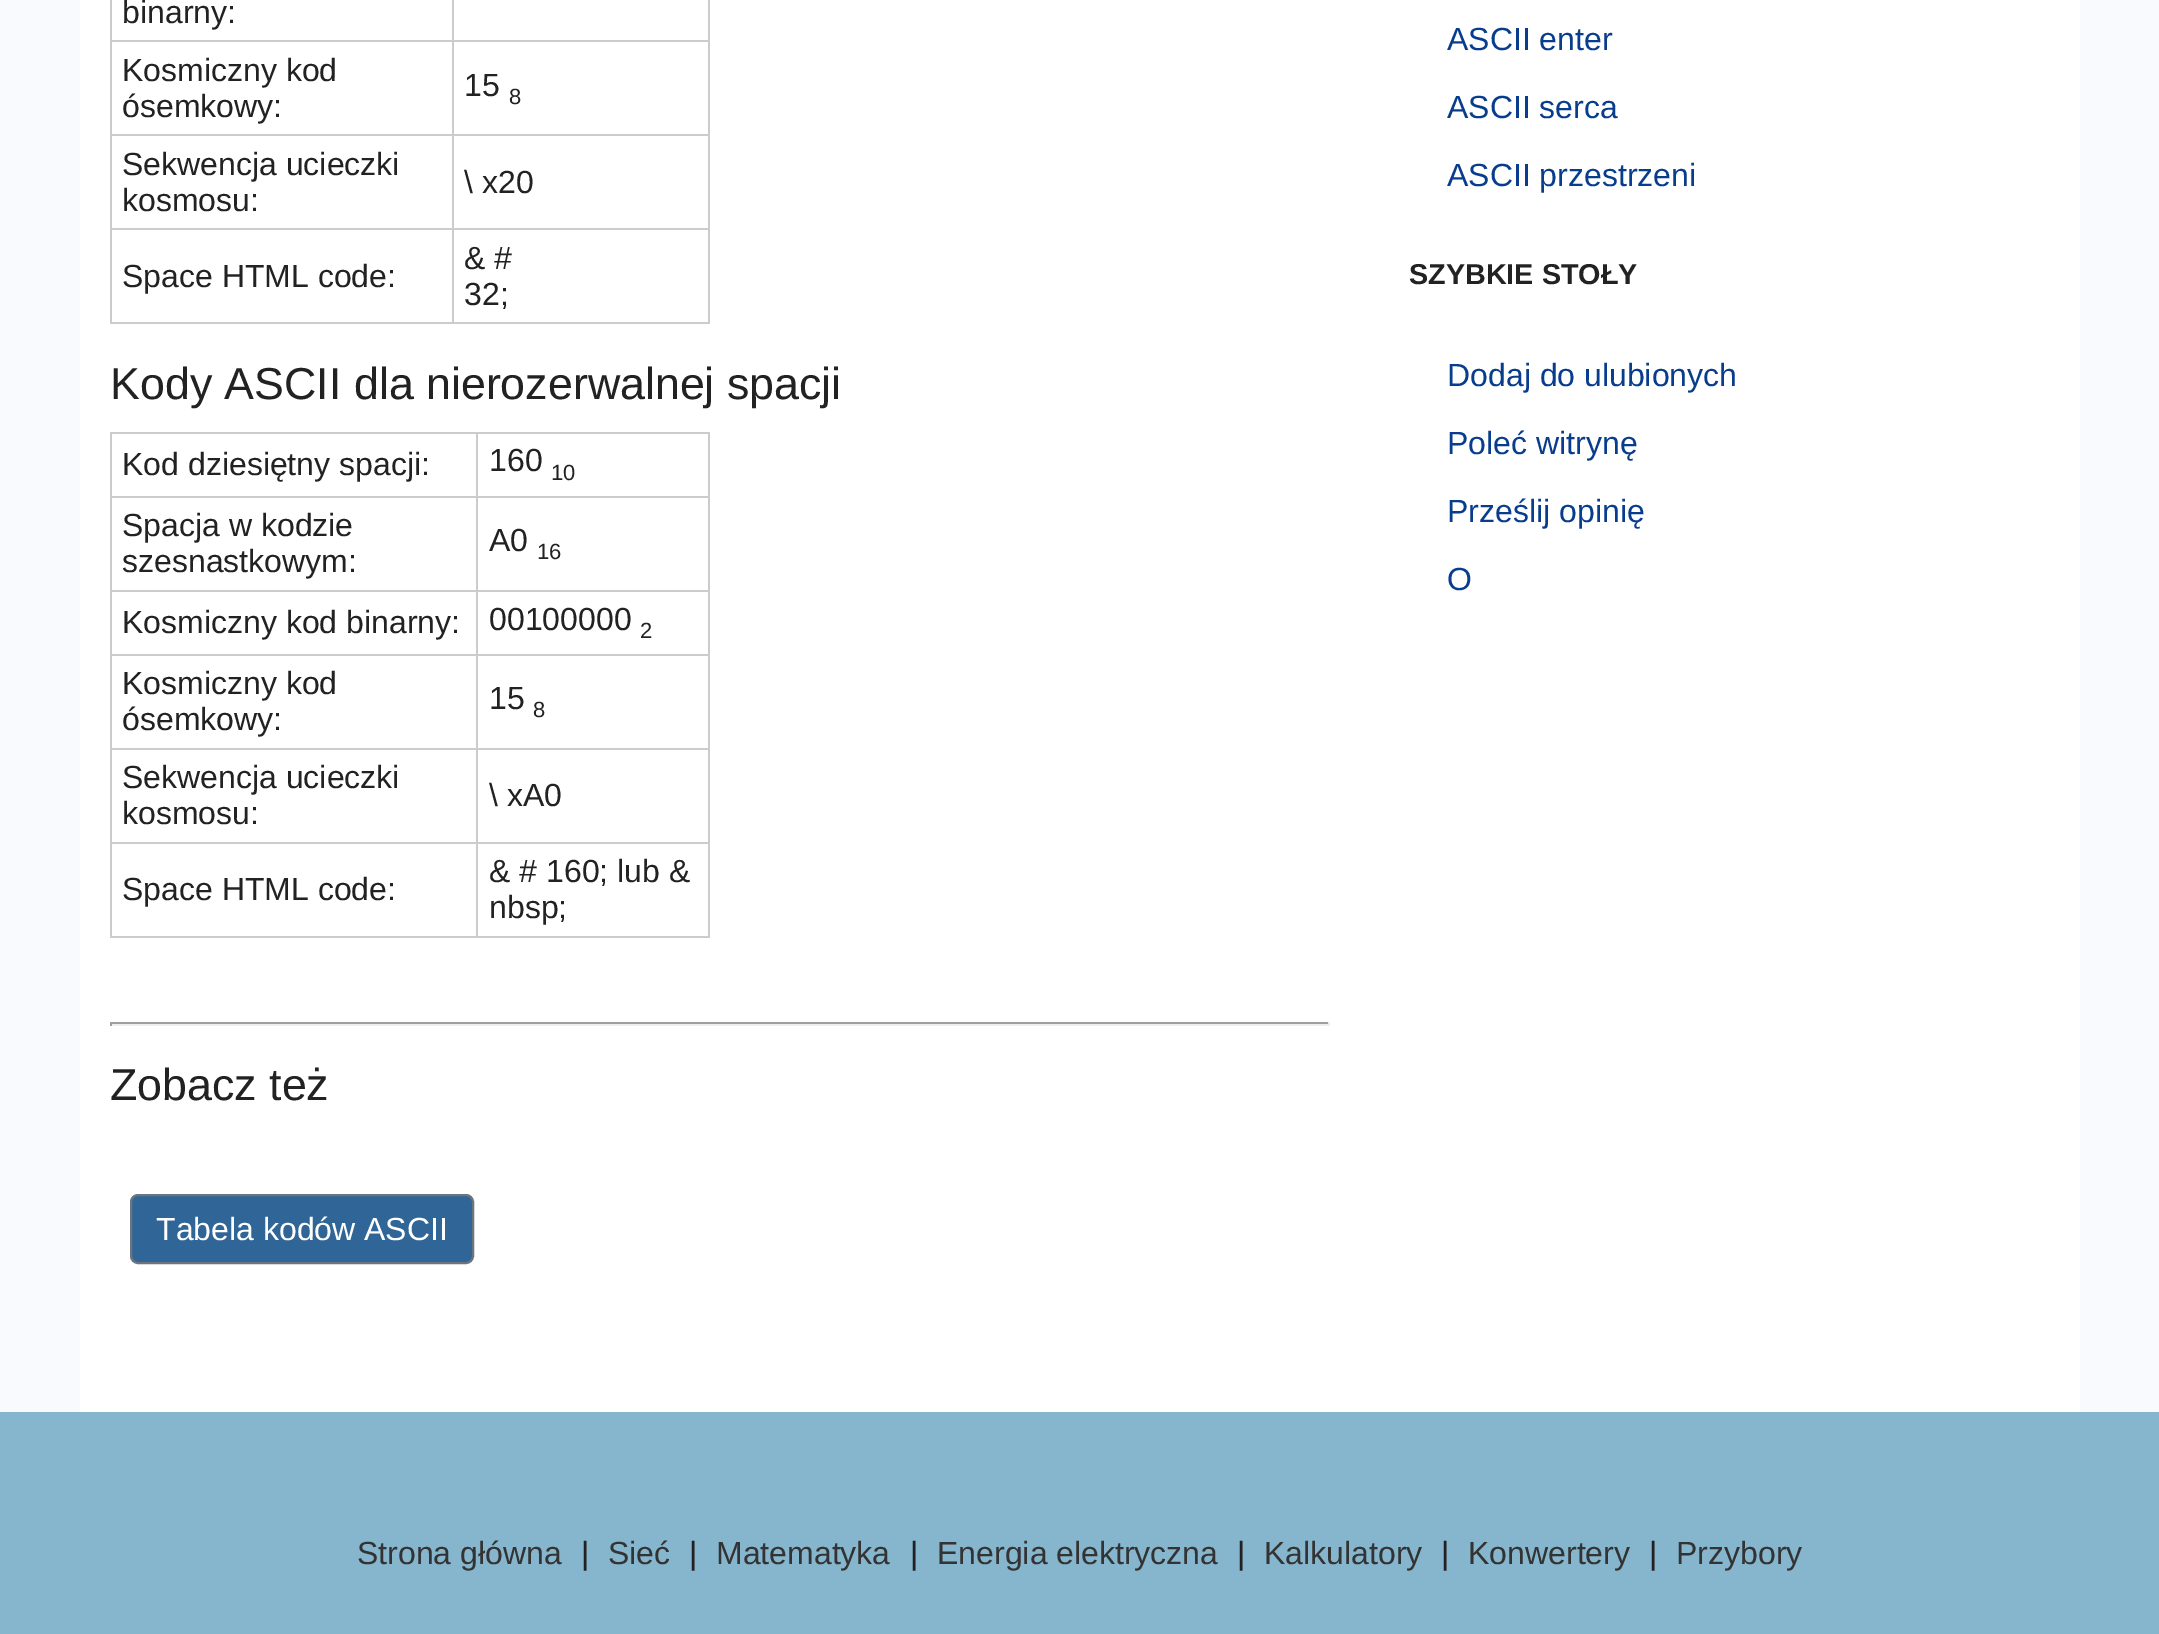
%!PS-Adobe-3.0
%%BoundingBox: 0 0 2159 1634
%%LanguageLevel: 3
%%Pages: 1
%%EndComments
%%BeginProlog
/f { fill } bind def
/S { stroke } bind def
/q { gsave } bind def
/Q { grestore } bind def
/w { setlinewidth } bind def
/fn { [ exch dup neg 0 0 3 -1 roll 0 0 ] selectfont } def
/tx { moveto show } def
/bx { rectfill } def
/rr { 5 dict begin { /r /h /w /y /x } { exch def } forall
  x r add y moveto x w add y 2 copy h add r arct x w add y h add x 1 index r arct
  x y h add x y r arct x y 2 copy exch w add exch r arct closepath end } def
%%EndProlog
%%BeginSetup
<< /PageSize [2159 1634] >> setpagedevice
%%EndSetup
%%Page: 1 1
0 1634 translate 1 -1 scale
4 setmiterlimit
0.976 0.98 0.992 setrgbcolor
0 0 2159 1634 bx
1 setgray
80 0 2000 1412 bx
0.8 setgray
708 0 2 324 bx
110 322 600 2 bx
110 0 2 324 bx
/LiberationSans-Regular 32 fn
0.133 setgray
(binarny:) 122 23 tx
0.8 setgray
452 40 258 2 bx
452 134 258 2 bx
452 228 258 2 bx
452 228 2 96 bx
110 228 344 2 bx
452 134 2 96 bx
110 134 344 2 bx
452 40 2 96 bx
110 40 344 2 bx
452 0 2 42 bx
0.133 setgray
(Kosmiczny kod) 122 81 tx
(ósemkowy:) 122 117 tx
(15) 464 96 tx
/LiberationSans-Regular 22 fn
(8) 509 104 tx
/LiberationSans-Regular 32 fn
(Sekwencja ucieczki) 122 175 tx
(kosmosu:) 122 211 tx
(\\ x20) 464 193 tx
(Space HTML code:) 122 287 tx
(& #) 464 269 tx
(32;) 464 305 tx
/LiberationSans-Regular 44.75 fn
(Kody ASCII dla nierozerwalnej spacji) 110 399 tx
0.8 setgray
110 432 600 2 bx
708 432 2 506 bx
110 936 600 2 bx
110 432 2 506 bx
/LiberationSans-Regular 32 fn
0.133 setgray
(Kod dziesiętny spacji:) 122 475 tx
0.8 setgray
476 496 234 2 bx
476 590 234 2 bx
476 654 234 2 bx
476 748 234 2 bx
476 842 234 2 bx
476 842 2 96 bx
110 842 368 2 bx
476 748 2 96 bx
110 748 368 2 bx
476 654 2 96 bx
110 654 368 2 bx
476 590 2 66 bx
110 590 368 2 bx
476 496 2 96 bx
110 496 368 2 bx
476 432 2 66 bx
0.133 setgray
(160) 489 471 tx
/LiberationSans-Regular 22 fn
(10) 551 480 tx
/LiberationSans-Regular 32 fn
(Spacja w kodzie) 122 536 tx
(szesnastkowym:) 122 572 tx
(A0) 489 551 tx
/LiberationSans-Regular 22 fn
(16) 537 559 tx
/LiberationSans-Regular 32 fn
(Kosmiczny kod binarny:) 122 633 tx
(00100000) 489 630 tx
/LiberationSans-Regular 22 fn
(2) 640 638 tx
/LiberationSans-Regular 32 fn
(Kosmiczny kod) 122 694 tx
(ósemkowy:) 122 730 tx
(15) 489 709 tx
/LiberationSans-Regular 22 fn
(8) 533 717 tx
/LiberationSans-Regular 32 fn
(Sekwencja ucieczki) 122 788 tx
(kosmosu:) 122 824 tx
(\\ xA0) 489 806 tx
(Space HTML code:) 122 900 tx
(& # 160; lub &) 489 882 tx
(nbsp;) 489 918 tx
0.624 setgray
110 1022 1220 2 bx
0.933 setgray
1328 1022 2 4 bx
110 1024 1220 2 bx
0.624 setgray
110 1022 2 4 bx
/LiberationSans-Regular 44.75 fn
0.133 setgray
(Zobacz też) 110 1100 tx
0.184 0.4 0.592 setrgbcolor
131 1195 342 68 7 rr q f Q
0.424 0.459 0.49 setrgbcolor
2 w
S
/LiberationSans-Regular 32 fn
1 setgray
(Tabela kodów ASCII) 156 1240 tx
0.031 0.239 0.553 setrgbcolor
(ASCII enter) 1447 50 tx
(ASCII serca) 1447 118 tx
(ASCII przestrzeni) 1447 186 tx
/LiberationSans-Bold 28.75 fn
0.133 setgray
(SZYBKIE STOŁY) 1409 284 tx
/LiberationSans-Regular 32 fn
0.031 0.239 0.553 setrgbcolor
(Dodaj do ulubionych) 1447 386 tx
(Poleć witrynę) 1447 454 tx
(Prześlij opinię) 1447 522 tx
(O) 1447 590 tx
0.522 0.714 0.804 setrgbcolor
0 1412 2159 222 bx
0.2 setgray
(Strona główna) 357 1564 tx
0.133 setgray
(|) 581 1564 tx
0.2 setgray
(Sieć) 608 1564 tx
0.133 setgray
(|) 689 1564 tx
0.2 setgray
(Matematyka) 716 1564 tx
0.133 setgray
(|) 910 1564 tx
0.2 setgray
(Energia elektryczna) 937 1564 tx
0.133 setgray
(|) 1237 1564 tx
0.2 setgray
(Kalkulatory) 1264 1564 tx
0.133 setgray
(|) 1441 1564 tx
0.2 setgray
(Konwertery) 1468 1564 tx
0.133 setgray
(|) 1649 1564 tx
0.2 setgray
(Przybory) 1676 1564 tx
showpage
%%EOF
